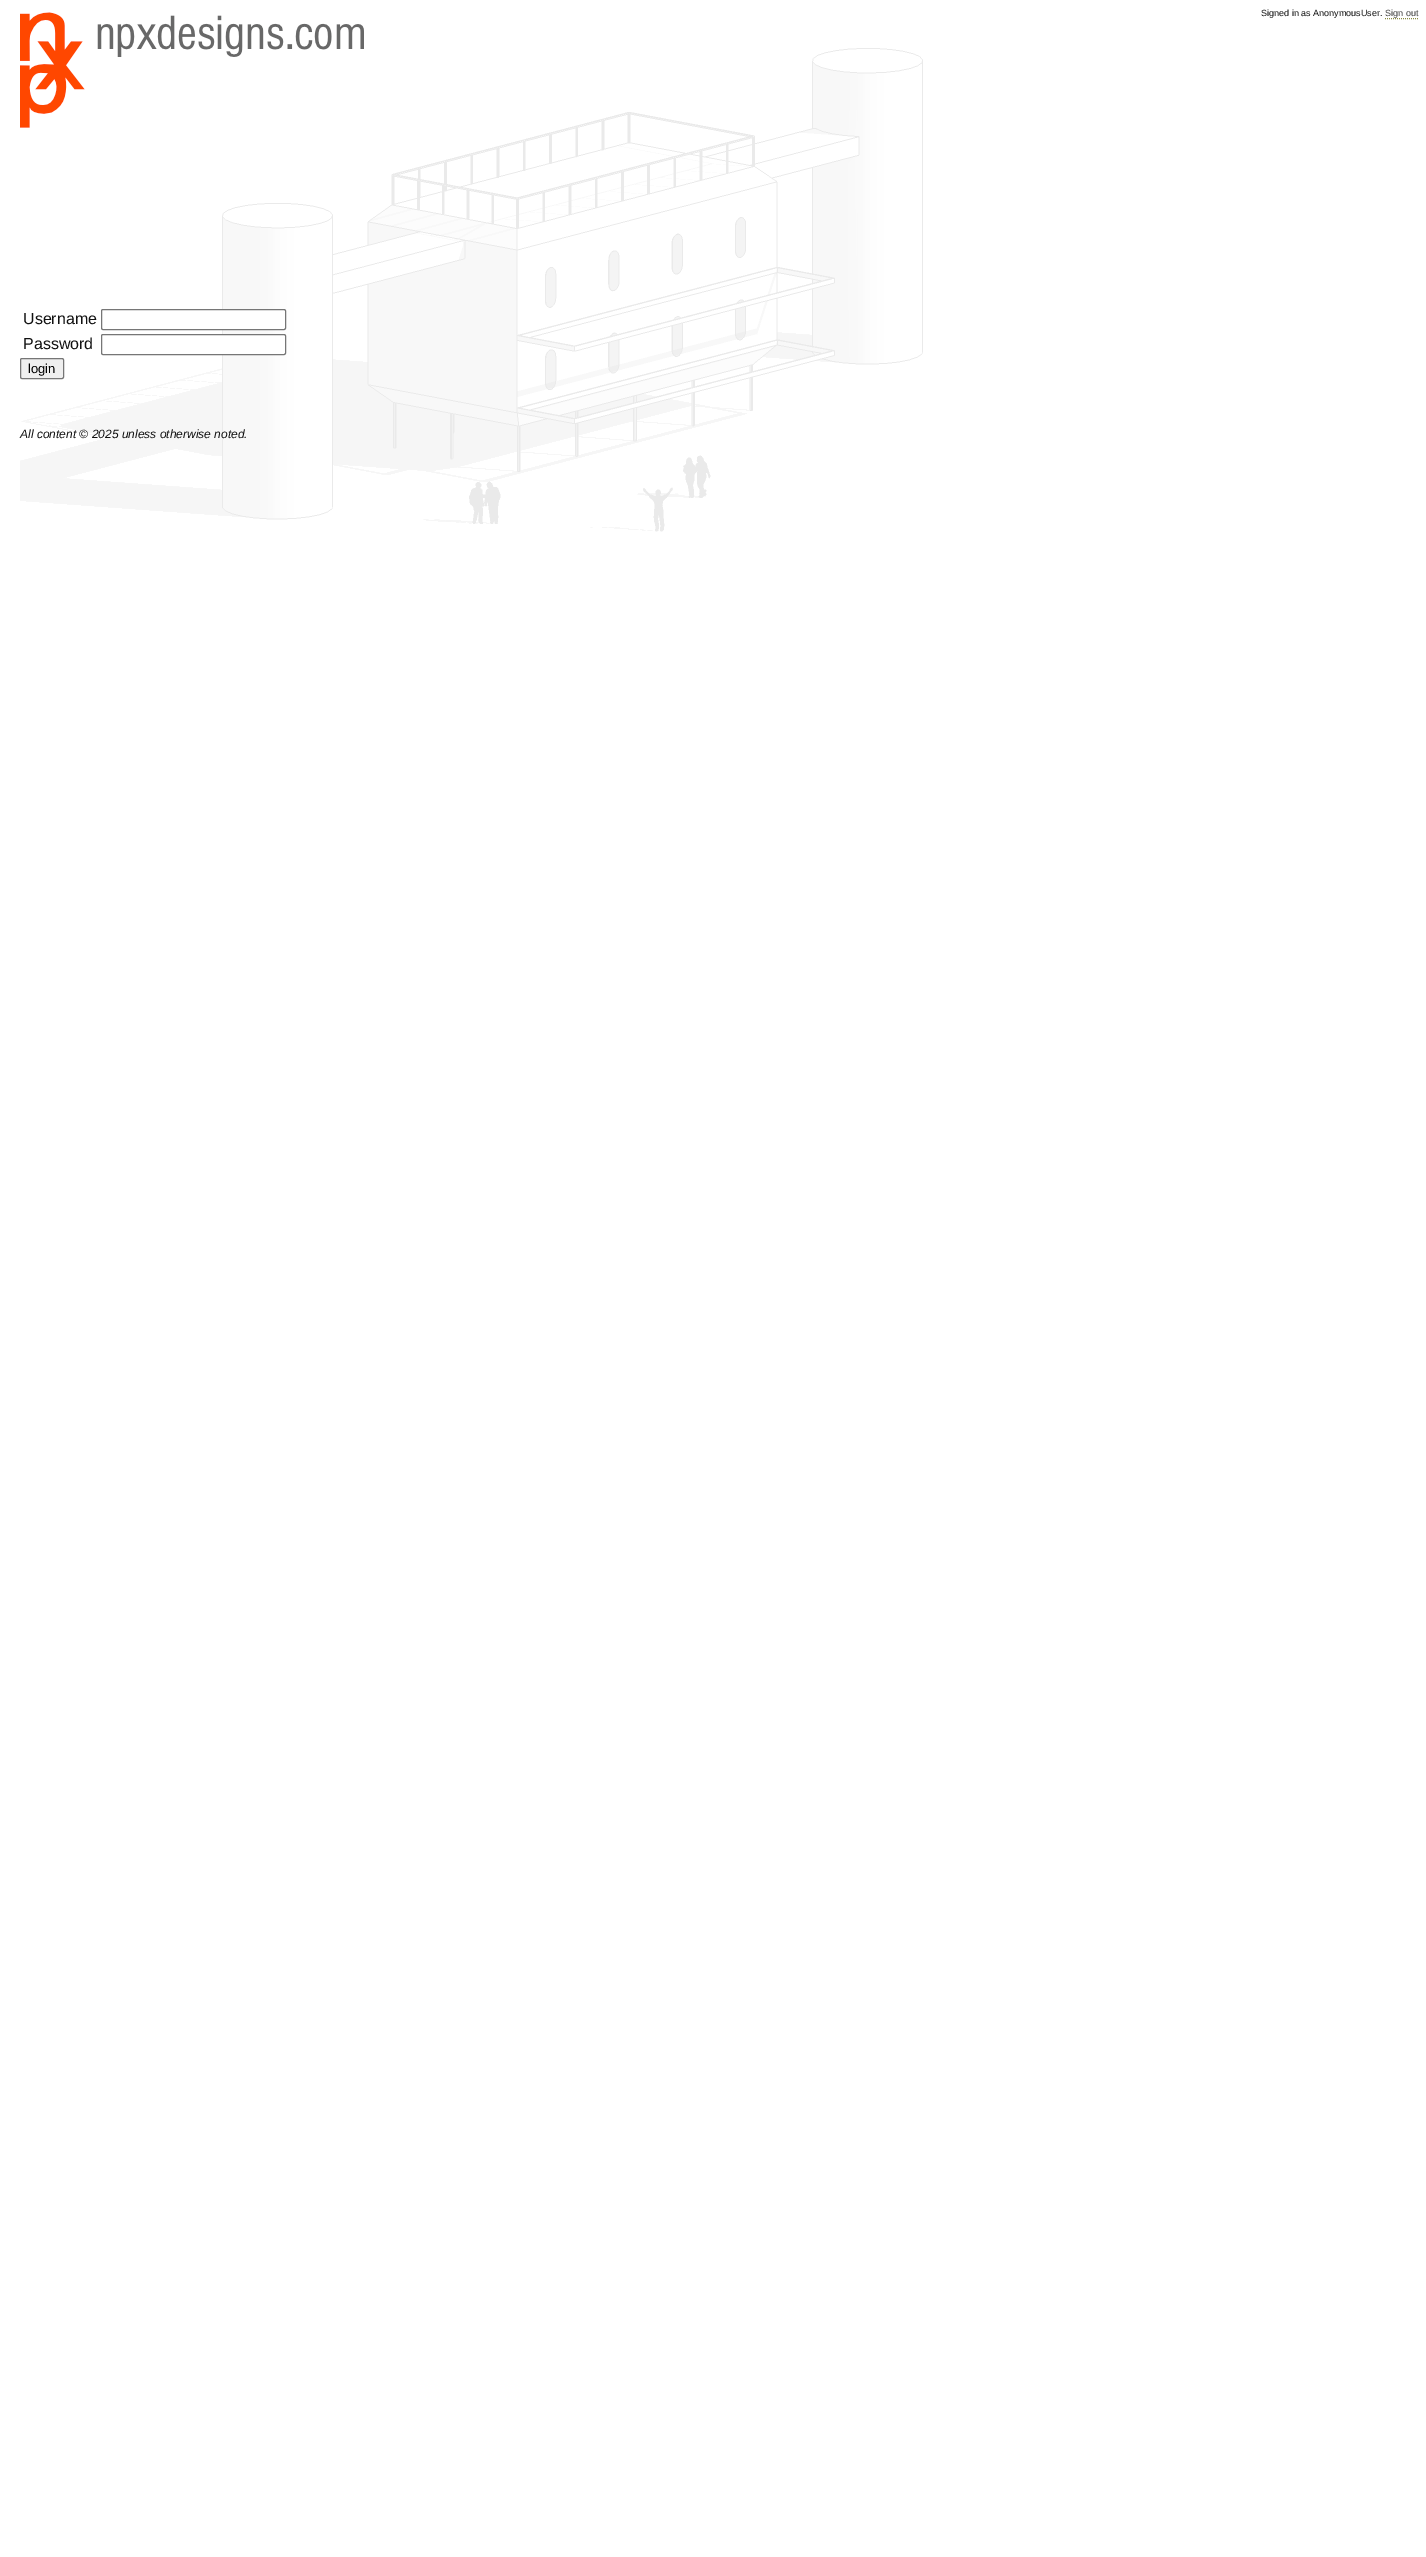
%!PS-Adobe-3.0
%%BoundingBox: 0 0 1426 2557
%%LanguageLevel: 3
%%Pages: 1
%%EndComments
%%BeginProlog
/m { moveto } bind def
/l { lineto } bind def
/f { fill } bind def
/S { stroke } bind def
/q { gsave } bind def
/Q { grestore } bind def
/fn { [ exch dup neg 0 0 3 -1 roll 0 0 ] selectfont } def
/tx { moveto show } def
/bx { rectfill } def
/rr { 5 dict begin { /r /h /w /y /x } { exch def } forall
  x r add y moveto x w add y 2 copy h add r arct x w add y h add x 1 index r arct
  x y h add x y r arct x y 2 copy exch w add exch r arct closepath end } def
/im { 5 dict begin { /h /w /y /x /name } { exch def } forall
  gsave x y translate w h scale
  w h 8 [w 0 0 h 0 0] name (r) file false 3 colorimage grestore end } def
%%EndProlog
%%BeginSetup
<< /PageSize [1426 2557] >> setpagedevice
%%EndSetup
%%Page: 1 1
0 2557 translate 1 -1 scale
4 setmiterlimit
1 setgray
0 0 1426 2557 bx
(image0.raw) 20 48 903 484 im
(image1.raw) 20 12 344 116 im
/LiberationSans-Regular 9 fn
0.067 setgray
(Signed in as AnonymousUser.) 1261 16 tx
0.267 setgray
(Sign out) 1385 16 tx
0.541 0.541 0.255 setrgbcolor
[1 1] 0 setdash
1385 18.5 m 1418 18.5 l S
/LiberationSans-Regular 16 fn
0.067 setgray
(Username) 23 324 tx
1 setgray
101.5 309.5 184 20 1.5 rr q f Q
0.463 setgray
[] 0 setdash
S
0.067 setgray
(Password) 23 349 tx
1 setgray
101.5 334.5 184 20 1.5 rr q f Q
0.463 setgray
S
0.937 setgray
20.5 358.5 43 20 1.5 rr q f Q
0.463 setgray
S
/LiberationSans-Regular 13 fn
0 setgray
(login) 28 373 tx
/LiberationSans-Italic 12 fn
0.067 setgray
(All content © 2025 unless otherwise noted.) 20 438 tx
showpage
%%EOF
